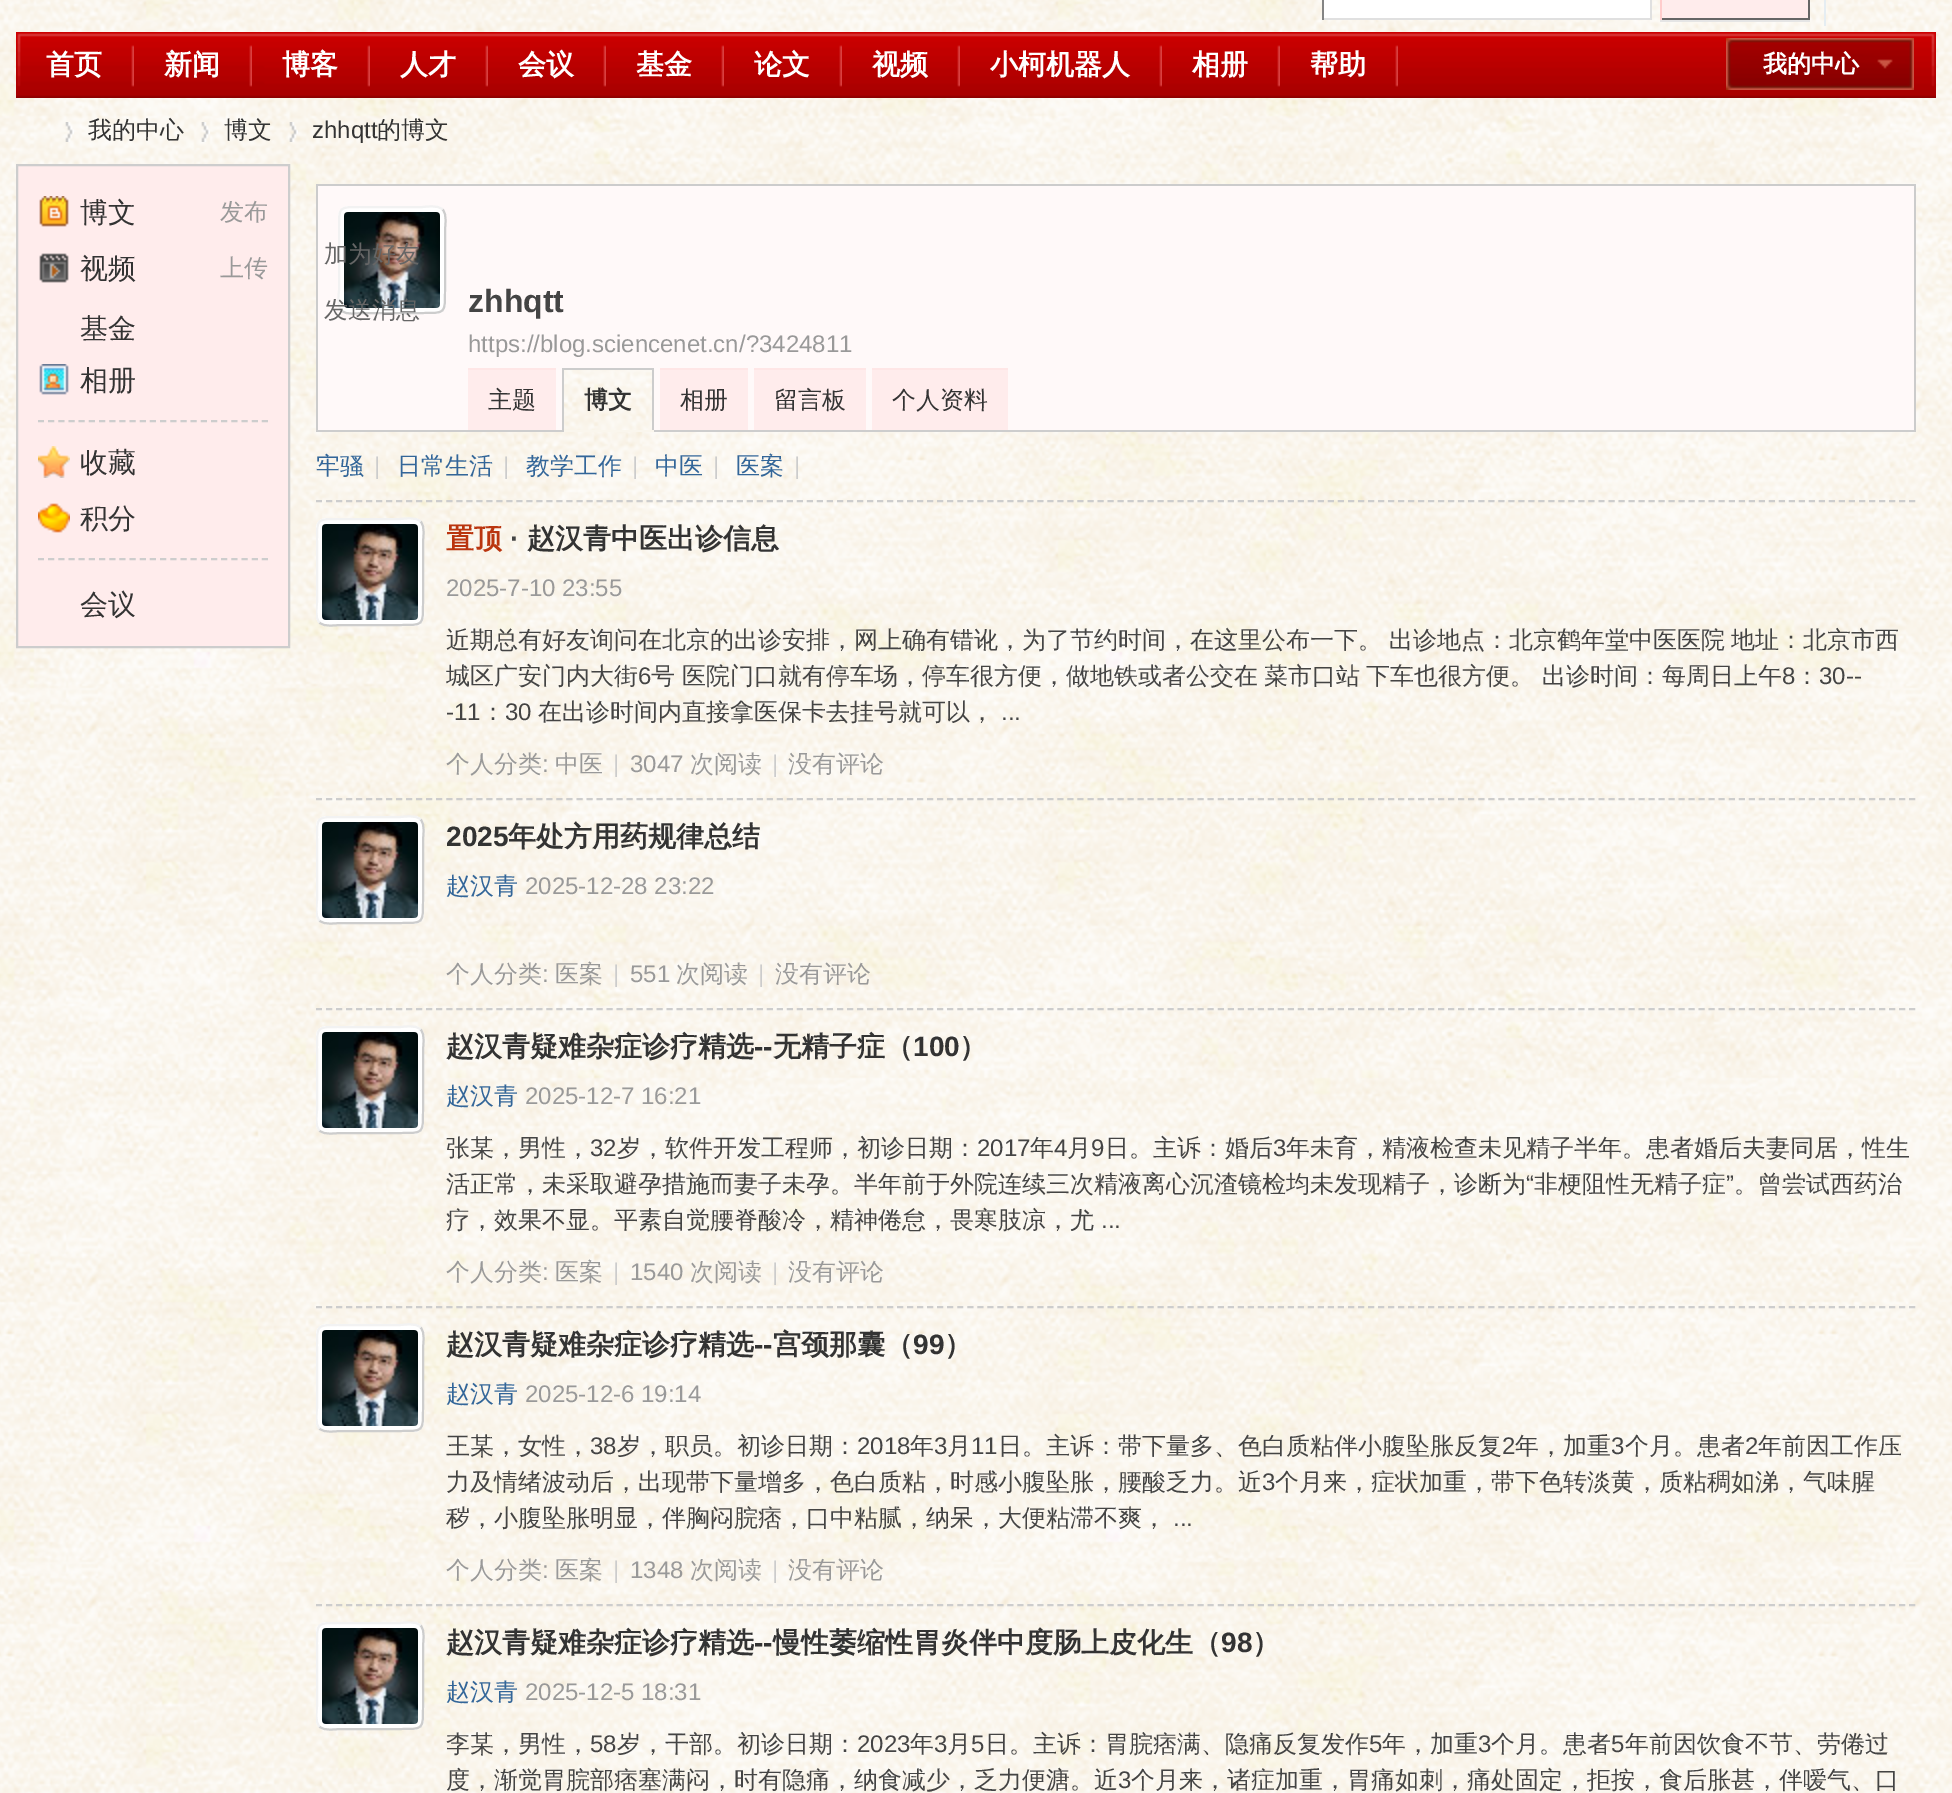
%!PS-Adobe-3.0
%%BoundingBox: 0 0 1952 1793
%%LanguageLevel: 3
%%Pages: 1
%%EndComments
%%BeginProlog
/m { moveto } bind def
/l { lineto } bind def
/c { curveto } bind def
/h { closepath } bind def
/f { fill } bind def
/S { stroke } bind def
/q { gsave } bind def
/Q { grestore } bind def
/w { setlinewidth } bind def
/fn { [ exch dup neg 0 0 3 -1 roll 0 0 ] selectfont } def
/tx { moveto show } def
/bx { rectfill } def
/rr { 5 dict begin { /r /h /w /y /x } { exch def } forall
  x r add y moveto x w add y 2 copy h add r arct x w add y h add x 1 index r arct
  x y h add x y r arct x y 2 copy exch w add exch r arct closepath end } def
/im { 5 dict begin { /h /w /y /x /name } { exch def } forall
  gsave x y translate w h scale
  w h 8 [w 0 0 h 0 0] name (r) file false 3 colorimage grestore end } def
%%EndProlog
%%BeginSetup
<< /PageSize [1952 1793] >> setpagedevice
%%EndSetup
%%Page: 1 1
0 1793 translate 1 -1 scale
4 setmiterlimit
1 setgray
0 0 1952 1793 bx
(image0.raw) 0 0 1952 1793 im
1324 0 326 18 bx
0.878 setgray
1650 0 2 20 bx
1322 18 330 2 bx
0.518 setgray
1322 0 2 20 bx
0.898 0.929 0.949 setrgbcolor
1824 0 2 26 bx
0.898 setgray
1660 20 150 2 bx
1 0.925 0.925 setrgbcolor
1662 0 146 18 bx
0.4 setgray
1808 0 2 20 bx
1660 18 150 2 bx
1 0.8 0.8 setrgbcolor
1660 0 2 20 bx
(image1.raw) 16 32 1920 66 im
(image2.raw) 131 45 3 42 im
/WenQuanYiZenHei-Bold 28 fn
1 setgray
(首页) 46 74 tx
(image2.raw) 249 45 3 42 im
(新闻) 164 74 tx
(image3.raw) 367 45 3 42 im
(博客) 282 74 tx
(image3.raw) 485 45 3 42 im
(人才) 400 74 tx
(image3.raw) 603 45 3 42 im
(会议) 518 74 tx
(image3.raw) 721 45 3 42 im
(基金) 636 74 tx
(image3.raw) 839 45 3 42 im
(论文) 754 74 tx
(image3.raw) 957 45 3 42 im
(视频) 872 74 tx
(image3.raw) 1159 45 3 42 im
(小柯机器人) 990 74 tx
(image3.raw) 1277 45 3 42 im
(相册) 1192 74 tx
(image3.raw) 1395 45 3 42 im
(帮助) 1310 74 tx
(image4.raw) 1726 38 188 52 im
/WenQuanYiZenHei-Bold 24 fn
(我的中心) 1763 72 tx
(image5.raw) 65 122 9 20 im
/WenQuanYiZenHei-Medium 24 fn
0.2 setgray
(我的中心) 88 138 tx
(image6.raw) 201 122 9 20 im
(博文) 224 138 tx
(image7.raw) 289 122 9 20 im
/LiberationSans-Regular 24 fn
(zhhqtt) 312 138 tx
/WenQuanYiZenHei-Medium 24 fn
(的博文) 377 138 tx
1 0.925 0.925 setrgbcolor
17 165 m 289 165 l 289 647 l 17 647 l h q f Q
0.804 setgray
2 w
S
(image8.raw) 39 196 30 31 im
/WenQuanYiZenHei-Medium 28 fn
0.2 setgray
(博文) 80 222 tx
/WenQuanYiZenHei-Medium 24 fn
0.6 setgray
(发布) 220 220 tx
(image9.raw) 39 253 30 30 im
/WenQuanYiZenHei-Medium 28 fn
0.2 setgray
(视频) 80 278 tx
/WenQuanYiZenHei-Medium 24 fn
0.6 setgray
(上传) 220 276 tx
/WenQuanYiZenHei-Medium 28 fn
0.2 setgray
(基金) 80 338 tx
(image10.raw) 39 364 30 31 im
(相册) 80 390 tx
0.804 setgray
[6 4.18] 0 setdash
38 421 m 268 421 l S
(image11.raw) 38 446 32 32 im
0.2 setgray
(收藏) 80 472 tx
(image12.raw) 38 503 32 30 im
(积分) 80 528 tx
0.804 setgray
38 559 m 268 559 l S
0.2 setgray
(会议) 80 614 tx
1 0.976 0.976 setrgbcolor
318 186 1596 244 bx
0.8 setgray
316 184 1600 2 bx
1914 184 2 248 bx
316 184 2 248 bx
1 setgray
338 206 108 108 10 rr f
0.804 setgray
[] 0 setdash
442.5 209.5 m 447.5 214.5 445 226 445 230.5 c 445 289.5 l 445 314 446 313 421.5 313 c 362.5 313 l 358 313 346.5 315.5 341.5 310.5 c S
0.949 setgray
341.5 310.5 m 336.5 305.5 339 294 339 289.5 c 339 230.5 l 339 206 338 207 362.5 207 c 421.5 207 l 426 207 437.5 204.5 442.5 209.5 c S
(image13.raw) 344 212 96 96 im
/WenQuanYiZenHei-Medium 24 fn
0.4 setgray
(加为好友) 324 262 tx
(发送消息) 324 318 tx
/LiberationSans-Bold 32 fn
0.267 setgray
(zhhqtt) 468 312 tx
/LiberationSans-Regular 24 fn
0.6 setgray
(https://blog.sciencenet.cn/?3424811) 468 352 tx
0.804 setgray
318 430 1596 2 bx
1 0.925 0.925 setrgbcolor
468 370 88 60 bx
1 0.902 0.902 setrgbcolor
468 368 88 2 bx
/WenQuanYiZenHei-Medium 24 fn
0.2 setgray
(主题) 488 408 tx
(image14.raw) 564 370 88 60 im
0.8 setgray
562 368 92 2 bx
652 368 2 64 bx
0.98 0.965 0.929 setrgbcolor
562 430 92 2 bx
0.8 setgray
562 368 2 64 bx
/WenQuanYiZenHei-Bold 24 fn
0.2 setgray
(博文) 584 408 tx
1 0.925 0.925 setrgbcolor
660 370 88 60 bx
1 0.902 0.902 setrgbcolor
660 368 88 2 bx
/WenQuanYiZenHei-Medium 24 fn
0.2 setgray
(相册) 680 408 tx
1 0.925 0.925 setrgbcolor
754 370 112 60 bx
1 0.902 0.902 setrgbcolor
754 368 112 2 bx
0.2 setgray
(留言板) 774 408 tx
1 0.925 0.925 setrgbcolor
872 370 136 60 bx
1 0.902 0.902 setrgbcolor
872 368 136 2 bx
0.2 setgray
(个人资料) 892 408 tx
0.804 setgray
[6 4.02] 0 setdash
316 501 m 1916 501 l S
0.2 0.4 0.6 setrgbcolor
(牢骚) 316 474 tx
/LiberationSans-Regular 24 fn
0.8 setgray
(|) 374 474 tx
/WenQuanYiZenHei-Medium 24 fn
0.2 0.4 0.6 setrgbcolor
(日常生活) 397 474 tx
/LiberationSans-Regular 24 fn
0.8 setgray
(|) 503 474 tx
/WenQuanYiZenHei-Medium 24 fn
0.2 0.4 0.6 setrgbcolor
(教学工作) 526 474 tx
/LiberationSans-Regular 24 fn
0.8 setgray
(|) 632 474 tx
/WenQuanYiZenHei-Medium 24 fn
0.2 0.4 0.6 setrgbcolor
(中医) 655 474 tx
/LiberationSans-Regular 24 fn
0.8 setgray
(|) 713 474 tx
/WenQuanYiZenHei-Medium 24 fn
0.2 0.4 0.6 setrgbcolor
(医案) 736 474 tx
/LiberationSans-Regular 24 fn
0.8 setgray
(|) 794 474 tx
0.804 setgray
316 799 m 1916 799 l S
1 setgray
316 518 108 108 10 rr f
0.804 setgray
[] 0 setdash
420.5 521.5 m 425.5 526.5 423 538 423 542.5 c 423 601.5 l 423 626 424 625 399.5 625 c 340.5 625 l 336 625 324.5 627.5 319.5 622.5 c S
q
316 164 1600 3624 rectclip
0.949 setgray
319.5 622.5 m 314.5 617.5 317 606 317 601.5 c 317 542.5 l 317 518 316 519 340.5 519 c 399.5 519 l 404 519 415.5 516.5 420.5 521.5 c S
Q
(image13.raw) 322 524 96 96 im
/WenQuanYiZenHei-Bold 28 fn
0.729 0.208 0.059 setrgbcolor
(置顶) 446 548 tx
/LiberationSans-Bold 28 fn
0.267 setgray
(·) 510 548 tx
/WenQuanYiZenHei-Bold 28 fn
0.2 setgray
(赵汉青中医出诊信息) 527 548 tx
/LiberationSans-Regular 24 fn
0.6 setgray
(2025-7-10 23:55) 446 596 tx
/WenQuanYiZenHei-Medium 24 fn
0.267 setgray
(近期总有好友询问在北京的出诊安排，网上确有错讹，为了节约时间，在这里公布一下。) 446 648 tx
(出诊地点：北京鹤年堂中医医院) 1389 648 tx
(地址：北京市西) 1731 648 tx
(城区广安门内大街) 446 684 tx
/LiberationSans-Regular 24 fn
(6) 638 684 tx
/WenQuanYiZenHei-Medium 24 fn
(号) 651 684 tx
682 684 m -1 0 32 (医院门口就有停车场，停车很方便，做地铁或者公交在 菜市口站 下车也很方便。) widthshow
(出诊时间：每周日上午) 1542 684 tx
/LiberationSans-Regular 24 fn
(8) 1782 684 tx
/WenQuanYiZenHei-Medium 24 fn
(：) 1795 684 tx
/LiberationSans-Regular 24 fn
(30--) 1819 684 tx
(-11) 446 720 tx
/WenQuanYiZenHei-Medium 24 fn
(：) 481 720 tx
/LiberationSans-Regular 24 fn
(30) 505 720 tx
/WenQuanYiZenHei-Medium 24 fn
(在出诊时间内直接拿医保卡去挂号就可以，) 538 720 tx
/LiberationSans-Regular 24 fn
(...) 1001 720 tx
/WenQuanYiZenHei-Medium 24 fn
0.6 setgray
(个人分类) 446 772 tx
/LiberationSans-Regular 24 fn
(:) 542 772 tx
/WenQuanYiZenHei-Medium 24 fn
(中医) 555 772 tx
/LiberationSans-Regular 24 fn
0.8 setgray
(|) 613 772 tx
0.6 setgray
(3047) 630 772 tx
/WenQuanYiZenHei-Medium 24 fn
(次阅读) 690 772 tx
/LiberationSans-Regular 24 fn
0.8 setgray
(|) 772 772 tx
/WenQuanYiZenHei-Medium 24 fn
0.6 setgray
(没有评论) 788 772 tx
0.804 setgray
[6 4.02] 0 setdash
316 1009 m 1916 1009 l S
1 setgray
316 816 108 108 10 rr f
0.804 setgray
[] 0 setdash
420.5 819.5 m 425.5 824.5 423 836 423 840.5 c 423 899.5 l 423 924 424 923 399.5 923 c 340.5 923 l 336 923 324.5 925.5 319.5 920.5 c S
q
316 164 1600 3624 rectclip
0.949 setgray
319.5 920.5 m 314.5 915.5 317 904 317 899.5 c 317 840.5 l 317 816 316 817 340.5 817 c 399.5 817 l 404 817 415.5 814.5 420.5 819.5 c S
Q
(image13.raw) 322 822 96 96 im
/LiberationSans-Bold 28 fn
0.2 setgray
(2025) 446 846 tx
/WenQuanYiZenHei-Bold 28 fn
(年处方用药规律总结) 508 846 tx
/WenQuanYiZenHei-Medium 24 fn
0.2 0.4 0.6 setrgbcolor
(赵汉青) 446 894 tx
/LiberationSans-Regular 24 fn
0.6 setgray
(2025-12-28 23:22) 525 894 tx
/WenQuanYiZenHei-Medium 24 fn
(个人分类) 446 982 tx
/LiberationSans-Regular 24 fn
(:) 542 982 tx
/WenQuanYiZenHei-Medium 24 fn
(医案) 555 982 tx
/LiberationSans-Regular 24 fn
0.8 setgray
(|) 613 982 tx
0.6 setgray
(551) 630 982 tx
/WenQuanYiZenHei-Medium 24 fn
(次阅读) 676 982 tx
/LiberationSans-Regular 24 fn
0.8 setgray
(|) 758 982 tx
/WenQuanYiZenHei-Medium 24 fn
0.6 setgray
(没有评论) 775 982 tx
0.804 setgray
[6 4.02] 0 setdash
316 1307 m 1916 1307 l S
1 setgray
316 1026 108 108 10 rr f
0.804 setgray
[] 0 setdash
420.5 1029.5 m 425.5 1034.5 423 1046 423 1050.5 c 423 1109.5 l 423 1134 424 1133 399.5 1133 c 340.5 1133 l 336 1133 324.5 1135.5 319.5 1130.5 c S
q
316 164 1600 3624 rectclip
0.949 setgray
319.5 1130.5 m 314.5 1125.5 317 1114 317 1109.5 c 317 1050.5 l 317 1026 316 1027 340.5 1027 c 399.5 1027 l 404 1027 415.5 1024.5 420.5 1029.5 c S
Q
(image13.raw) 322 1032 96 96 im
/WenQuanYiZenHei-Bold 28 fn
0.2 setgray
(赵汉青疑难杂症诊疗精选) 446 1056 tx
/LiberationSans-Bold 28 fn
(--) 754 1056 tx
/WenQuanYiZenHei-Bold 28 fn
(无精子症（) 773 1056 tx
/LiberationSans-Bold 28 fn
(100) 913 1056 tx
/WenQuanYiZenHei-Bold 28 fn
(）) 959 1056 tx
/WenQuanYiZenHei-Medium 24 fn
0.2 0.4 0.6 setrgbcolor
(赵汉青) 446 1104 tx
/LiberationSans-Regular 24 fn
0.6 setgray
(2025-12-7 16:21) 525 1104 tx
/WenQuanYiZenHei-Medium 24 fn
0.267 setgray
(张某，男性，) 446 1156 tx
/LiberationSans-Regular 24 fn
(32) 590 1156 tx
/WenQuanYiZenHei-Medium 24 fn
(岁，软件开发工程师，初诊日期：) 617 1156 tx
/LiberationSans-Regular 24 fn
(2017) 977 1156 tx
/WenQuanYiZenHei-Medium 24 fn
(年) 1030 1156 tx
/LiberationSans-Regular 24 fn
(4) 1054 1156 tx
/WenQuanYiZenHei-Medium 24 fn
(月) 1067 1156 tx
/LiberationSans-Regular 24 fn
(9) 1091 1156 tx
/WenQuanYiZenHei-Medium 24 fn
(日。主诉：婚后) 1105 1156 tx
/LiberationSans-Regular 24 fn
(3) 1273 1156 tx
/WenQuanYiZenHei-Medium 24 fn
(年未育，精液检查未见精子半年。患者婚后夫妻同居，性生) 1286 1156 tx
(活正常，未采取避孕措施而妻子未孕。半年前于外院连续三次精液离心沉渣镜检均未发现精子，诊断为) 446 1192 tx
/LiberationSans-Regular 24 fn
(“) 1526 1192 tx
/WenQuanYiZenHei-Medium 24 fn
(非梗阻性无精子症) 1534 1192 tx
/LiberationSans-Regular 24 fn
(”) 1726 1192 tx
/WenQuanYiZenHei-Medium 24 fn
(。曾尝试西药治) 1734 1192 tx
(疗，效果不显。平素自觉腰脊酸冷，精神倦怠，畏寒肢凉，尤) 446 1228 tx
/LiberationSans-Regular 24 fn
(...) 1101 1228 tx
/WenQuanYiZenHei-Medium 24 fn
0.6 setgray
(个人分类) 446 1280 tx
/LiberationSans-Regular 24 fn
(:) 542 1280 tx
/WenQuanYiZenHei-Medium 24 fn
(医案) 555 1280 tx
/LiberationSans-Regular 24 fn
0.8 setgray
(|) 613 1280 tx
0.6 setgray
(1540) 630 1280 tx
/WenQuanYiZenHei-Medium 24 fn
(次阅读) 690 1280 tx
/LiberationSans-Regular 24 fn
0.8 setgray
(|) 772 1280 tx
/WenQuanYiZenHei-Medium 24 fn
0.6 setgray
(没有评论) 788 1280 tx
0.804 setgray
[6 4.02] 0 setdash
316 1605 m 1916 1605 l S
1 setgray
316 1324 108 108 10 rr f
0.804 setgray
[] 0 setdash
420.5 1327.5 m 425.5 1332.5 423 1344 423 1348.5 c 423 1407.5 l 423 1432 424 1431 399.5 1431 c 340.5 1431 l 336 1431 324.5 1433.5 319.5 1428.5 c S
q
316 164 1600 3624 rectclip
0.949 setgray
319.5 1428.5 m 314.5 1423.5 317 1412 317 1407.5 c 317 1348.5 l 317 1324 316 1325 340.5 1325 c 399.5 1325 l 404 1325 415.5 1322.5 420.5 1327.5 c S
Q
(image13.raw) 322 1330 96 96 im
/WenQuanYiZenHei-Bold 28 fn
0.2 setgray
(赵汉青疑难杂症诊疗精选) 446 1354 tx
/LiberationSans-Bold 28 fn
(--) 754 1354 tx
/WenQuanYiZenHei-Bold 28 fn
(宫颈那囊（) 773 1354 tx
/LiberationSans-Bold 28 fn
(99) 913 1354 tx
/WenQuanYiZenHei-Bold 28 fn
(）) 944 1354 tx
/WenQuanYiZenHei-Medium 24 fn
0.2 0.4 0.6 setrgbcolor
(赵汉青) 446 1402 tx
/LiberationSans-Regular 24 fn
0.6 setgray
(2025-12-6 19:14) 525 1402 tx
/WenQuanYiZenHei-Medium 24 fn
0.267 setgray
(王某，女性，) 446 1454 tx
/LiberationSans-Regular 24 fn
(38) 590 1454 tx
/WenQuanYiZenHei-Medium 24 fn
(岁，职员。初诊日期：) 617 1454 tx
/LiberationSans-Regular 24 fn
(2018) 857 1454 tx
/WenQuanYiZenHei-Medium 24 fn
(年) 910 1454 tx
/LiberationSans-Regular 24 fn
(3) 934 1454 tx
/WenQuanYiZenHei-Medium 24 fn
(月) 947 1454 tx
/LiberationSans-Regular 24 fn
(11) 971 1454 tx
/WenQuanYiZenHei-Medium 24 fn
(日。主诉：带下量多、色白质粘伴小腹坠胀反复) 998 1454 tx
/LiberationSans-Regular 24 fn
(2) 1502 1454 tx
/WenQuanYiZenHei-Medium 24 fn
(年，加重) 1515 1454 tx
/LiberationSans-Regular 24 fn
(3) 1611 1454 tx
/WenQuanYiZenHei-Medium 24 fn
(个月。患者) 1625 1454 tx
/LiberationSans-Regular 24 fn
(2) 1745 1454 tx
/WenQuanYiZenHei-Medium 24 fn
(年前因工作压) 1758 1454 tx
(力及情绪波动后，出现带下量增多，色白质粘，时感小腹坠胀，腰酸乏力。近) 446 1490 tx
/LiberationSans-Regular 24 fn
(3) 1262 1490 tx
/WenQuanYiZenHei-Medium 24 fn
(个月来，症状加重，带下色转淡黄，质粘稠如涕，气味腥) 1275 1490 tx
(秽，小腹坠胀明显，伴胸闷脘痞，口中粘腻，纳呆，大便粘滞不爽，) 446 1526 tx
/LiberationSans-Regular 24 fn
(...) 1173 1526 tx
/WenQuanYiZenHei-Medium 24 fn
0.6 setgray
(个人分类) 446 1578 tx
/LiberationSans-Regular 24 fn
(:) 542 1578 tx
/WenQuanYiZenHei-Medium 24 fn
(医案) 555 1578 tx
/LiberationSans-Regular 24 fn
0.8 setgray
(|) 613 1578 tx
0.6 setgray
(1348) 630 1578 tx
/WenQuanYiZenHei-Medium 24 fn
(次阅读) 690 1578 tx
/LiberationSans-Regular 24 fn
0.8 setgray
(|) 772 1578 tx
/WenQuanYiZenHei-Medium 24 fn
0.6 setgray
(没有评论) 788 1578 tx
1 setgray
316 1622 108 108 10 rr f
0.804 setgray
420.5 1625.5 m 425.5 1630.5 423 1642 423 1646.5 c 423 1705.5 l 423 1730 424 1729 399.5 1729 c 340.5 1729 l 336 1729 324.5 1731.5 319.5 1726.5 c S
q
316 164 1600 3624 rectclip
0.949 setgray
319.5 1726.5 m 314.5 1721.5 317 1710 317 1705.5 c 317 1646.5 l 317 1622 316 1623 340.5 1623 c 399.5 1623 l 404 1623 415.5 1620.5 420.5 1625.5 c S
Q
(image13.raw) 322 1628 96 96 im
/WenQuanYiZenHei-Bold 28 fn
0.2 setgray
(赵汉青疑难杂症诊疗精选) 446 1652 tx
/LiberationSans-Bold 28 fn
(--) 754 1652 tx
/WenQuanYiZenHei-Bold 28 fn
(慢性萎缩性胃炎伴中度肠上皮化生（) 773 1652 tx
/LiberationSans-Bold 28 fn
(98) 1221 1652 tx
/WenQuanYiZenHei-Bold 28 fn
(）) 1252 1652 tx
/WenQuanYiZenHei-Medium 24 fn
0.2 0.4 0.6 setrgbcolor
(赵汉青) 446 1700 tx
/LiberationSans-Regular 24 fn
0.6 setgray
(2025-12-5 18:31) 525 1700 tx
/WenQuanYiZenHei-Medium 24 fn
0.267 setgray
(李某，男性，) 446 1752 tx
/LiberationSans-Regular 24 fn
(58) 590 1752 tx
/WenQuanYiZenHei-Medium 24 fn
(岁，干部。初诊日期：) 617 1752 tx
/LiberationSans-Regular 24 fn
(2023) 857 1752 tx
/WenQuanYiZenHei-Medium 24 fn
(年) 910 1752 tx
/LiberationSans-Regular 24 fn
(3) 934 1752 tx
/WenQuanYiZenHei-Medium 24 fn
(月) 947 1752 tx
/LiberationSans-Regular 24 fn
(5) 971 1752 tx
/WenQuanYiZenHei-Medium 24 fn
(日。主诉：胃脘痞满、隐痛反复发作) 985 1752 tx
/LiberationSans-Regular 24 fn
(5) 1369 1752 tx
/WenQuanYiZenHei-Medium 24 fn
(年，加重) 1382 1752 tx
/LiberationSans-Regular 24 fn
(3) 1478 1752 tx
/WenQuanYiZenHei-Medium 24 fn
(个月。患者) 1491 1752 tx
/LiberationSans-Regular 24 fn
(5) 1611 1752 tx
/WenQuanYiZenHei-Medium 24 fn
(年前因饮食不节、劳倦过) 1625 1752 tx
(度，渐觉胃脘部痞塞满闷，时有隐痛，纳食减少，乏力便溏。近) 446 1788 tx
/LiberationSans-Regular 24 fn
(3) 1118 1788 tx
/WenQuanYiZenHei-Medium 24 fn
(个月来，诸症加重，胃痛如刺，痛处固定，拒按，食后胀甚，伴嗳气、口) 1131 1788 tx
showpage
%%EOF
